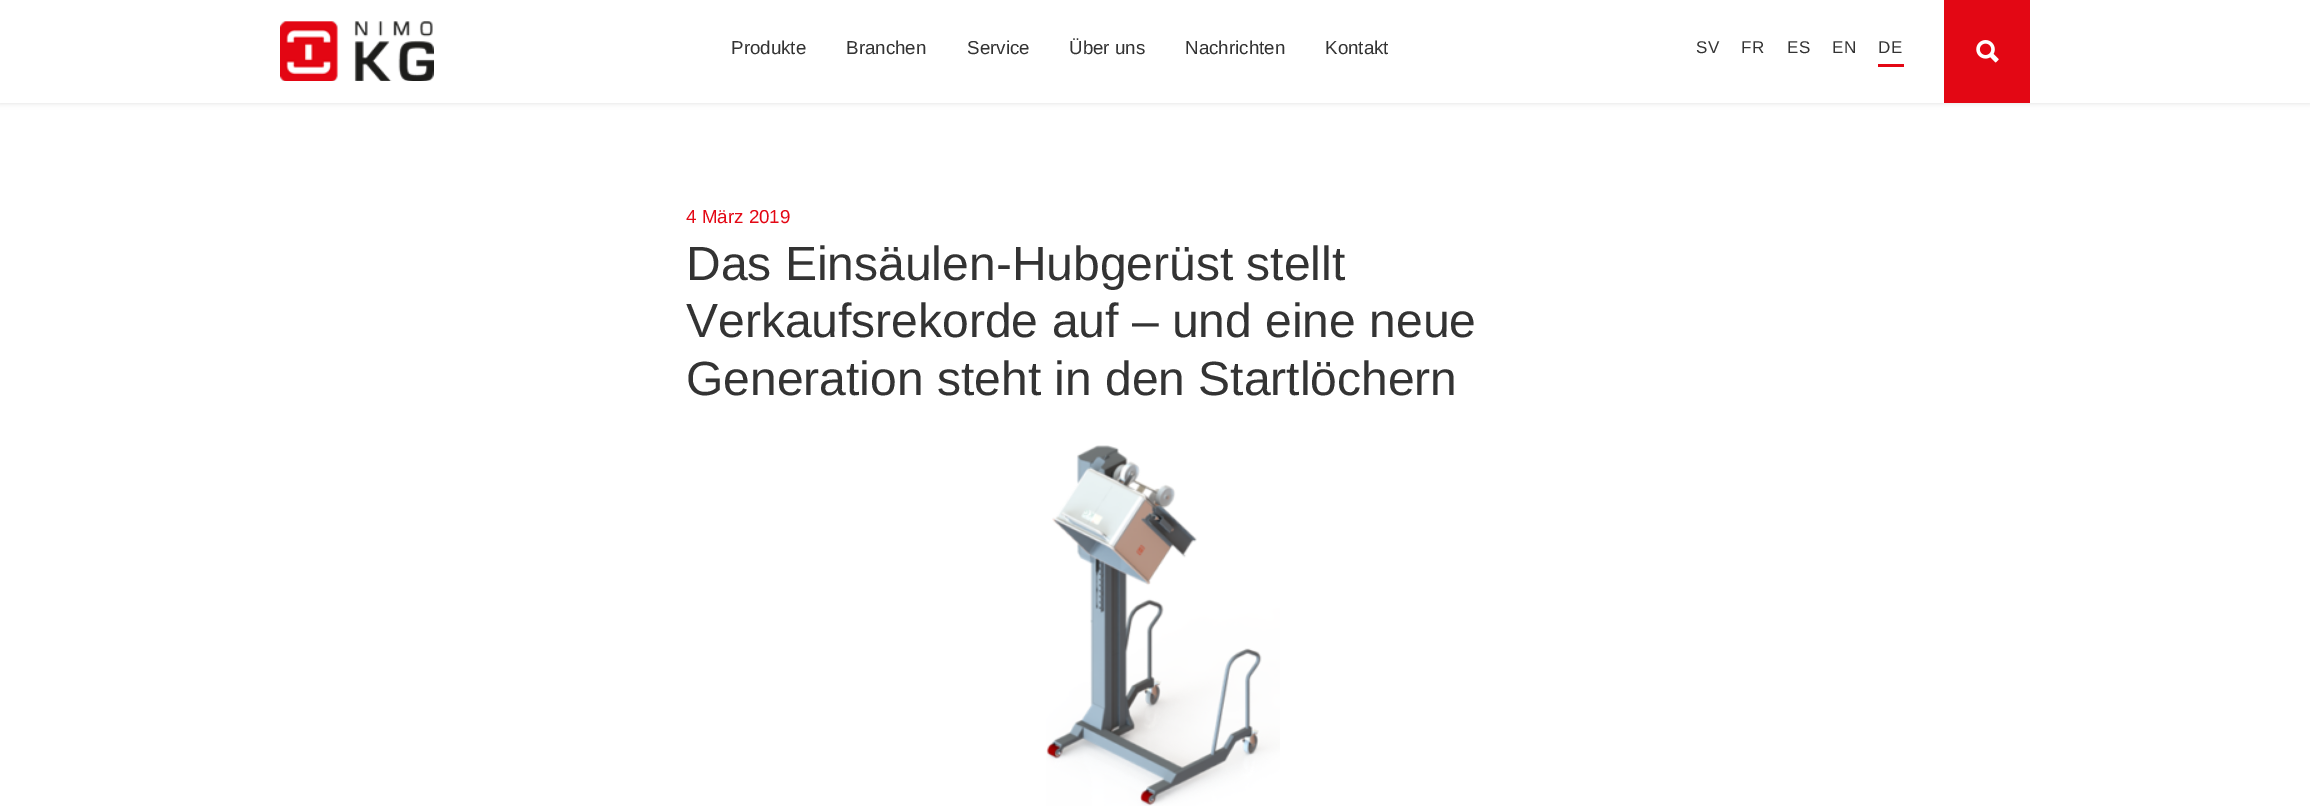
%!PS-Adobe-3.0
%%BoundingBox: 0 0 2310 810
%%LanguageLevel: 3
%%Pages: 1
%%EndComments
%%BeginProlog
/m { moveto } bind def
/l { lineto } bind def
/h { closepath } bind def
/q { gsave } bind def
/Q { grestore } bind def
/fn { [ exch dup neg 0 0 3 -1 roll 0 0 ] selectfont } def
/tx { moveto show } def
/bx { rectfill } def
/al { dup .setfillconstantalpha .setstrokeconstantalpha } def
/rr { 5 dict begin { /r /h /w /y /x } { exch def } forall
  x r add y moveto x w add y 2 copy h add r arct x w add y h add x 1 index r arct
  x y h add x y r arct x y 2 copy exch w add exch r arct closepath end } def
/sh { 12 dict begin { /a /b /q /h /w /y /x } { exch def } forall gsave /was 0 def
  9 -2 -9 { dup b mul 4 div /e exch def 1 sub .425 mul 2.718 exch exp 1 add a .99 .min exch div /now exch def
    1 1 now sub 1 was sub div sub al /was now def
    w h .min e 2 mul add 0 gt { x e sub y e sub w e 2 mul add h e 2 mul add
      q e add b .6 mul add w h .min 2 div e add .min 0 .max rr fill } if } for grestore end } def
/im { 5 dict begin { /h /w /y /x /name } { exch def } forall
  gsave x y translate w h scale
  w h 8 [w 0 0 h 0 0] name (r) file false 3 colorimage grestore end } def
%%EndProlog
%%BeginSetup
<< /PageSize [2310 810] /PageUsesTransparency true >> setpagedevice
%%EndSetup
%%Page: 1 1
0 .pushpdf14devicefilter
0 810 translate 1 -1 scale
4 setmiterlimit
1 setgray
0 0 2310 810 bx
q
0 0 m 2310 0 l 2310 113 l 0 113 l h 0 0 m 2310 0 l 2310 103 l 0 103 l h eoclip newpath
0.863 setgray
0 0 2310 103 0 3 1 sh
Q
(image0.raw) 280 21 154 60 im
/LiberationSans-Regular 18.75 fn
0.2 setgray
(Produkte) 731 54 tx
(Branchen) 846 54 tx
(Service) 967 54 tx
(Über uns) 1069 54 tx
(Nachrichten) 1185 54 tx
(Kontakt) 1325 54 tx
/LiberationSans-Regular 17 fn
1696 53 m 1 0 (SV) ashow
1741 53 m 1 0 (FR) ashow
1787 53 m 1 0 (ES) ashow
1832 53 m 1 0 (EN) ashow
1878 53 m 1 0 (DE) ashow
0.89 0.027 0.078 setrgbcolor
1878 64 26 3 bx
1944 0 86 103 bx
(image1.raw) 1976 40 23 23 im
/LiberationSans-Regular 18.75 fn
(4 März 2019) 686 223 tx
/LiberationSans-Regular 48 fn
0.2 setgray
(Das Einsäulen-Hubgerüst stellt) 686 280 tx
(Verkaufsrekorde auf – und eine neue) 686 337 tx
(Generation steht in den Startlöchern) 686 395 tx
(image2.raw) 1046 445 234 361 im
.poppdf14devicefilter showpage
%%EOF
